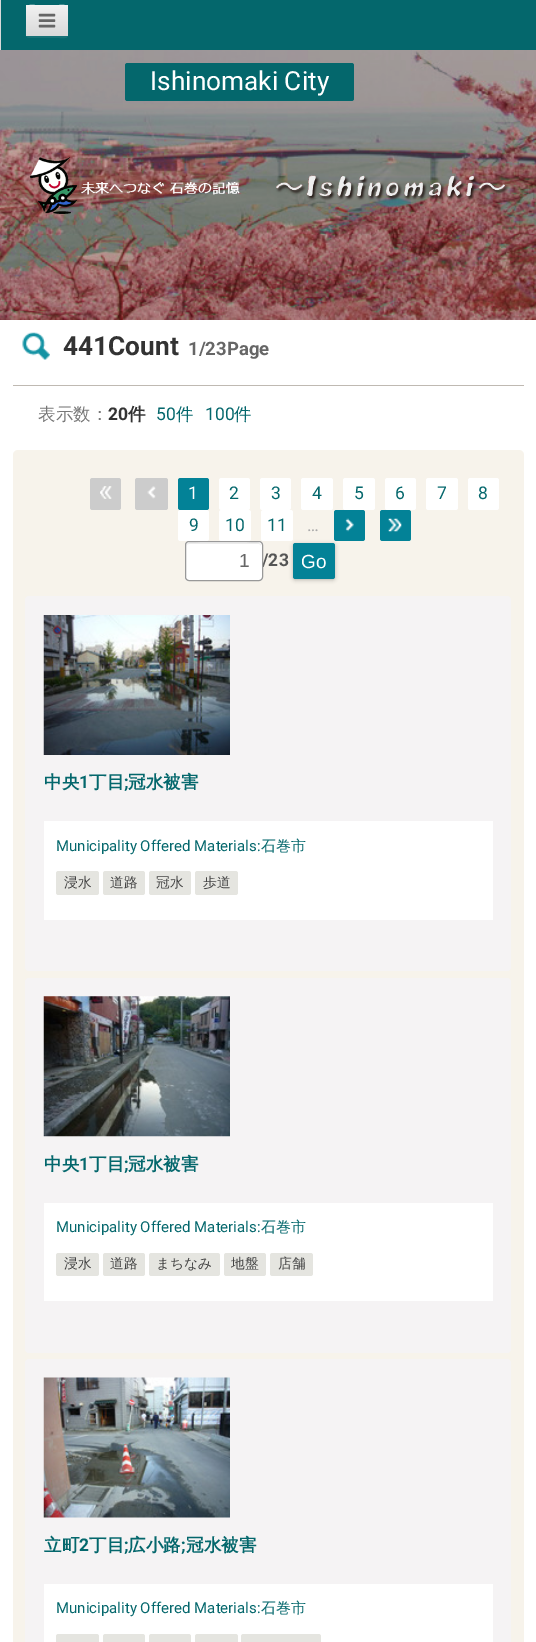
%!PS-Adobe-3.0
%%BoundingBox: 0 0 536 1642
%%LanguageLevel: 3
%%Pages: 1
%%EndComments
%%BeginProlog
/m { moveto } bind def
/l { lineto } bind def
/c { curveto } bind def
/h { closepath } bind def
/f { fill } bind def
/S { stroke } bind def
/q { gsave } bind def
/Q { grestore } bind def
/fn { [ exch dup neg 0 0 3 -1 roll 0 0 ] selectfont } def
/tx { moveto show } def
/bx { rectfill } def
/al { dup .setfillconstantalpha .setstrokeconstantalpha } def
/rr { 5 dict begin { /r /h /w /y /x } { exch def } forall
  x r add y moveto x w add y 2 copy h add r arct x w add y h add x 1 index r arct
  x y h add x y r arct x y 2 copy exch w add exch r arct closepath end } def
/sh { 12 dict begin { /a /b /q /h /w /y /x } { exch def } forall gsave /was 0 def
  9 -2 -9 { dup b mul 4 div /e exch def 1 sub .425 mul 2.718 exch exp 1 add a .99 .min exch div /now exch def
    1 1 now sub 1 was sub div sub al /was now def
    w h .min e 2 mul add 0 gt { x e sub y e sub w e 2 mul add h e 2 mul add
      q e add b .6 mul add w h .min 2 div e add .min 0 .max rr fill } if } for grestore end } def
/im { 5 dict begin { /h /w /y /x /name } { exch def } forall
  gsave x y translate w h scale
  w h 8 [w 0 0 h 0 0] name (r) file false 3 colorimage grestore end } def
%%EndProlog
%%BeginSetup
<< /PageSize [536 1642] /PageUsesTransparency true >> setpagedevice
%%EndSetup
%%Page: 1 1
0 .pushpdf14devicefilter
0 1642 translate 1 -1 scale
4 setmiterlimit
1 setgray
0 0 536 1642 bx
0.016 0.404 0.424 setrgbcolor
1 0 535 50 bx
0.851 setgray
0 0 1 50 bx
0.09 0.447 0.467 setrgbcolor
26 7 m 26 26 l 26 38 24 38 35 38 c 59 38 l 68 38 68 39 68 31 c 68 22 l 68 19 69 9 67 7 c 68 25 l 68 36 70 36 59 36 c 35 36 l 26 36 26 37 26 29 c h f
q 26 5 42 31 2.5 rr clip newpath
<< /ShadingType 2 /ColorSpace /DeviceRGB /Coords [47 5 47 36] /Extend [true true] /Function << /FunctionType 2 /Domain [0 1] /C0 [0.949 0.949 0.949] /C1 [0.851 0.851 0.851] /N 1 >> >> shfill Q
0.953 setgray
29 6 m 65 6 l 66 6 68 7 68 9 c 68 4 64 5 59 5 c 35 5 l 30 5 26 4 26 9 c 26 7 27 6 29 6 c h f
(image0.raw) 38 13 18 15 im
(image1.raw) 0 50 536 270 im
0.016 0.404 0.424 setrgbcolor
125 63 229 38 2.5 rr f
/Roboto-Regular 26.25 fn
1 setgray
(Ishinomaki City) 150 90 tx
(image2.raw) 30 157 479 57 im
0.749 0.725 0.698 setrgbcolor
13 385 511 1 bx
(image3.raw) 22 332 28 28 im
/Roboto-Bold 26.25 fn
0.2 setgray
(441Count) 63 355 tx
/Roboto-Bold 18.5 fn
0.4 setgray
(1/23Page) 188 355 tx
/WenQuanYiZenHei-Medium 17.5 fn
0.467 setgray
(表示数：) 38 420 tx
/Roboto-Bold 17.5 fn
0.2 setgray
(20) 108 420 tx
/WenQuanYiZenHei-Bold 17.5 fn
(件) 128 420 tx
/Roboto-Regular 17.5 fn
0.016 0.404 0.424 setrgbcolor
(50) 156 420 tx
/WenQuanYiZenHei-Medium 17.5 fn
(件) 176 420 tx
/Roboto-Regular 17.5 fn
(100) 205 420 tx
/WenQuanYiZenHei-Medium 17.5 fn
(件) 234 420 tx
0.969 0.953 0.922 setrgbcolor
13 450 511 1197 5 rr f
0.8 setgray
90 478 31 32 2.5 rr f
(image4.raw) 100 486 12 13 im
135 478 33 32 2.5 rr f
(image5.raw) 147 486 9 13 im
0.012 0.51 0.592 setrgbcolor
178 478 31 32 2.5 rr f
/Roboto-Regular 17.5 fn
1 setgray
(1) 188 499 tx
219 478 31 32 2.5 rr f
0.016 0.404 0.424 setrgbcolor
(2) 229 499 tx
1 setgray
260 478 31 32 2.5 rr f
0.016 0.404 0.424 setrgbcolor
(3) 271 499 tx
1 setgray
301 478 32 32 2.5 rr f
0.016 0.404 0.424 setrgbcolor
(4) 312 499 tx
1 setgray
343 478 32 32 2.5 rr f
0.016 0.404 0.424 setrgbcolor
(5) 354 499 tx
1 setgray
385 478 31 32 2.5 rr f
0.016 0.404 0.424 setrgbcolor
(6) 395 499 tx
1 setgray
426 478 32 32 2.5 rr f
0.016 0.404 0.424 setrgbcolor
(7) 437 499 tx
1 setgray
468 478 31 32 2.5 rr f
0.016 0.404 0.424 setrgbcolor
(8) 478 499 tx
1 setgray
178 510 31 31 2.5 rr f
0.016 0.404 0.424 setrgbcolor
(9) 189 531 tx
1 setgray
219 510 32 31 2.5 rr f
0.016 0.404 0.424 setrgbcolor
(10) 225 531 tx
1 setgray
261 510 32 31 2.5 rr f
0.016 0.404 0.424 setrgbcolor
(11) 267 531 tx
0.667 setgray
(…) 307 531 tx
0.012 0.51 0.592 setrgbcolor
334 510 31 31 2.5 rr f
(image6.raw) 345 518 9 14 im
380 510 31 31 2.5 rr f
(image7.raw) 388 518 14 14 im
/Roboto-Bold 17.5 fn
0.333 setgray
(/23) 262 566 tx
1 setgray
185 541 78 40 4 rr f
0.925 setgray
189 544 m 259 544 l 260 544 261 545 261 546 c 261 540 248 543 247 543 c 200 543 l 199 543 186 540 186 546 c 186 545 187 544 189 544 c h f
0.6 setgray
185.5 541.5 77 39 3.5 rr S
/LiberationSans-Regular 19 fn
0.4 setgray
(1) 239 567 tx
0 setgray
293 544 42 36 2.5 2 0.25 sh
0.012 0.51 0.592 setrgbcolor
293 543 42 36 2.5 rr f
1 setgray
(Go) 301 568 tx
0.961 0.953 0.957 setrgbcolor
25 596 486 375 4 rr f
(image8.raw) 43 615 187 140 im
/WenQuanYiZenHei-Bold 17.5 fn
0.016 0.404 0.424 setrgbcolor
(中央) 44 788 tx
/Roboto-Bold 17.5 fn
(1) 79 788 tx
/WenQuanYiZenHei-Bold 17.5 fn
(丁目) 89 788 tx
/Roboto-Bold 17.5 fn
(;) 124 788 tx
/WenQuanYiZenHei-Bold 17.5 fn
(冠水被害) 128 788 tx
1 setgray
44 821 449 99 bx
/Roboto-Regular 15 fn
0.016 0.404 0.424 setrgbcolor
(Municipality Offered Materials:) 56 851 tx
/WenQuanYiZenHei-Medium 15 fn
(石巻市) 261 851 tx
0.898 0.898 0.878 setrgbcolor
56 871 43 24 2.5 rr f
/WenQuanYiZenHei-Medium 13.75 fn
0.267 setgray
(浸水) 64 887 tx
0.898 0.898 0.878 setrgbcolor
103 871 42 24 2.5 rr f
0.267 setgray
(道路) 110 887 tx
0.898 0.898 0.878 setrgbcolor
149 871 42 24 2.5 rr f
0.267 setgray
(冠水) 156 887 tx
0.898 0.898 0.878 setrgbcolor
195 871 43 24 2.5 rr f
0.267 setgray
(歩道) 203 887 tx
0.961 0.953 0.957 setrgbcolor
25 978 486 375 4 rr f
(image9.raw) 43 996 187 141 im
/WenQuanYiZenHei-Bold 17.5 fn
0.016 0.404 0.424 setrgbcolor
(中央) 44 1170 tx
/Roboto-Bold 17.5 fn
(1) 79 1170 tx
/WenQuanYiZenHei-Bold 17.5 fn
(丁目) 89 1170 tx
/Roboto-Bold 17.5 fn
(;) 124 1170 tx
/WenQuanYiZenHei-Bold 17.5 fn
(冠水被害) 128 1170 tx
1 setgray
44 1203 449 98 bx
/Roboto-Regular 15 fn
0.016 0.404 0.424 setrgbcolor
(Municipality Offered Materials:) 56 1232 tx
/WenQuanYiZenHei-Medium 15 fn
(石巻市) 261 1232 tx
0.898 0.898 0.878 setrgbcolor
56 1253 43 23 2.5 rr f
/WenQuanYiZenHei-Medium 13.75 fn
0.267 setgray
(浸水) 64 1268 tx
0.898 0.898 0.878 setrgbcolor
103 1253 42 23 2.5 rr f
0.267 setgray
(道路) 110 1268 tx
0.898 0.898 0.878 setrgbcolor
149 1253 71 23 2.5 rr f
0.267 setgray
(まちなみ) 156 1268 tx
0.898 0.898 0.878 setrgbcolor
224 1253 42 23 2.5 rr f
0.267 setgray
(地盤) 231 1268 tx
0.898 0.898 0.878 setrgbcolor
270 1253 43 23 2.5 rr f
0.267 setgray
(店舗) 278 1268 tx
0.961 0.953 0.957 setrgbcolor
25 1359 486 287 4 rr f
(image10.raw) 43 1377 187 141 im
/WenQuanYiZenHei-Bold 17.5 fn
0.016 0.404 0.424 setrgbcolor
(立町) 44 1551 tx
/Roboto-Bold 17.5 fn
(2) 79 1551 tx
/WenQuanYiZenHei-Bold 17.5 fn
(丁目) 89 1551 tx
/Roboto-Bold 17.5 fn
(;) 124 1551 tx
/WenQuanYiZenHei-Bold 17.5 fn
(広小路) 128 1551 tx
/Roboto-Bold 17.5 fn
(;) 181 1551 tx
/WenQuanYiZenHei-Bold 17.5 fn
(冠水被害) 186 1551 tx
1 setgray
44 1584 449 58 bx
/Roboto-Regular 15 fn
0.016 0.404 0.424 setrgbcolor
(Municipality Offered Materials:) 56 1613 tx
/WenQuanYiZenHei-Medium 15 fn
(石巻市) 261 1613 tx
0.898 0.898 0.878 setrgbcolor
56 1634 43 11 2.5 rr f
103 1634 42 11 2.5 rr f
149 1634 42 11 2.5 rr f
195 1634 43 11 2.5 rr f
241 1634 80 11 2.5 rr f
.poppdf14devicefilter showpage
%%EOF
